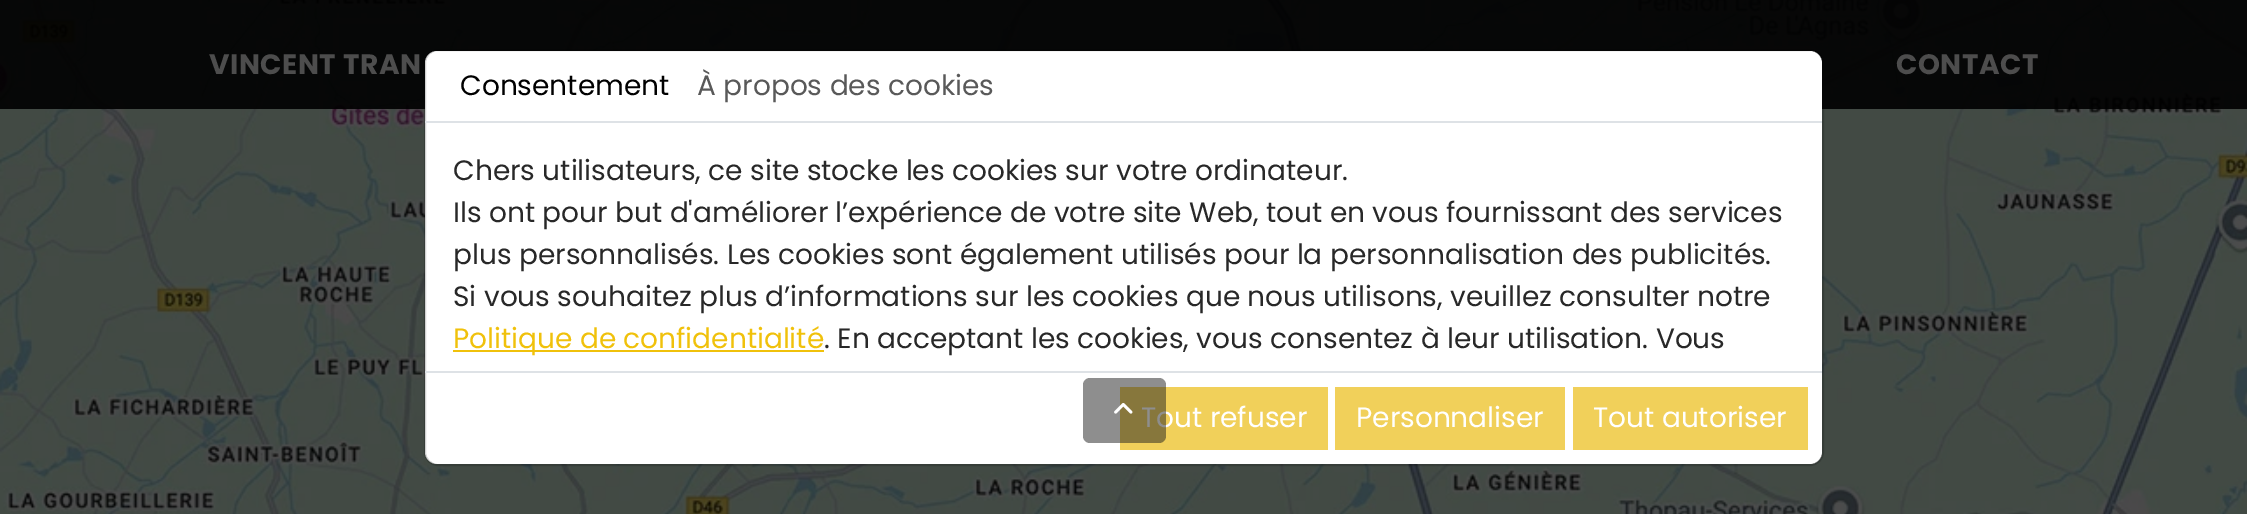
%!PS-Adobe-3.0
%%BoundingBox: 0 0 2247 514
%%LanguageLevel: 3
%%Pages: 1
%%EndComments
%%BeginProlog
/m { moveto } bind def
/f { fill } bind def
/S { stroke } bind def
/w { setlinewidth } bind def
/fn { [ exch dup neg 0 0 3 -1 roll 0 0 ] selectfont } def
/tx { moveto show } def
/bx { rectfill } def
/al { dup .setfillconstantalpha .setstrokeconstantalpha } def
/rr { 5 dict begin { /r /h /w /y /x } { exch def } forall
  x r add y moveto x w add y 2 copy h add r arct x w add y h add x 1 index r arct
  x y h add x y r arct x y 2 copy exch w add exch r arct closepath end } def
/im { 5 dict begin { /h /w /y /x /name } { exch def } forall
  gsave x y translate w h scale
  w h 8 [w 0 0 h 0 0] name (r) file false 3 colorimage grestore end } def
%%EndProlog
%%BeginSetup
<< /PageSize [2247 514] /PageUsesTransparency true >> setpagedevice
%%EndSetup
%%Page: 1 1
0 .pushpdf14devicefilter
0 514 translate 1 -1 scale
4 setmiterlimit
1 setgray
0 0 2247 514 bx
(image0.raw) 0 0 2247 514 im
0.9 al
0 setgray
0 0 2247 109 bx
/Poppins-Bold 28 fn
1 al
0.302 setgray
209 74 m 0.5 0 (VINCENT TRAN) ashow
1896 74 m 0.5 0 (CONTACT) ashow
1 setgray
425 51 1397 413 12 rr f
0.18 al
0 setgray
2 w
425 50 1398 415 13 rr S
1 al
0.945 0.816 0.353 setrgbcolor
1120 387 208 63 bx
/Poppins-Regular 28 fn
1 setgray
(Tout refuser) 1141 427 tx
0.5 al
0.118 setgray
1083 378 83 65 7 rr f
1 al
(image1.raw) 1114 403 19 11 im
0.871 0.886 0.902 setrgbcolor
425 121 1397 2 bx
0 setgray
(Consentement) 460 95 tx
0.349 setgray
(À propos des cookies) 697 95 tx
0.157 setgray
(Chers utilisateurs, ce site stocke les cookies sur votre ordinateur.) 453 180 tx
(Ils ont pour but d'améliorer l’expérience de votre site Web, tout en vous fournissant des services) 453 222 tx
(plus personnalisés. Les cookies sont également utilisés pour la personnalisation des publicités.) 453 264 tx
(Si vous souhaitez plus d’informations sur les cookies que nous utilisons, veuillez consulter notre) 453 306 tx
0.941 0.757 0.043 setrgbcolor
453 350 371 2 bx
(Politique de confidentialité) 453 348 tx
0.157 setgray
(. En acceptant les cookies, vous consentez à leur utilisation. Vous) 824 348 tx
0.871 0.886 0.902 setrgbcolor
425 371 1397 2 bx
0.945 0.816 0.353 setrgbcolor
1335 387 230 63 bx
1 setgray
(Personnaliser) 1356 427 tx
0.945 0.816 0.353 setrgbcolor
1573 387 235 63 bx
1 setgray
(Tout autoriser) 1593 427 tx
.poppdf14devicefilter showpage
%%EOF
